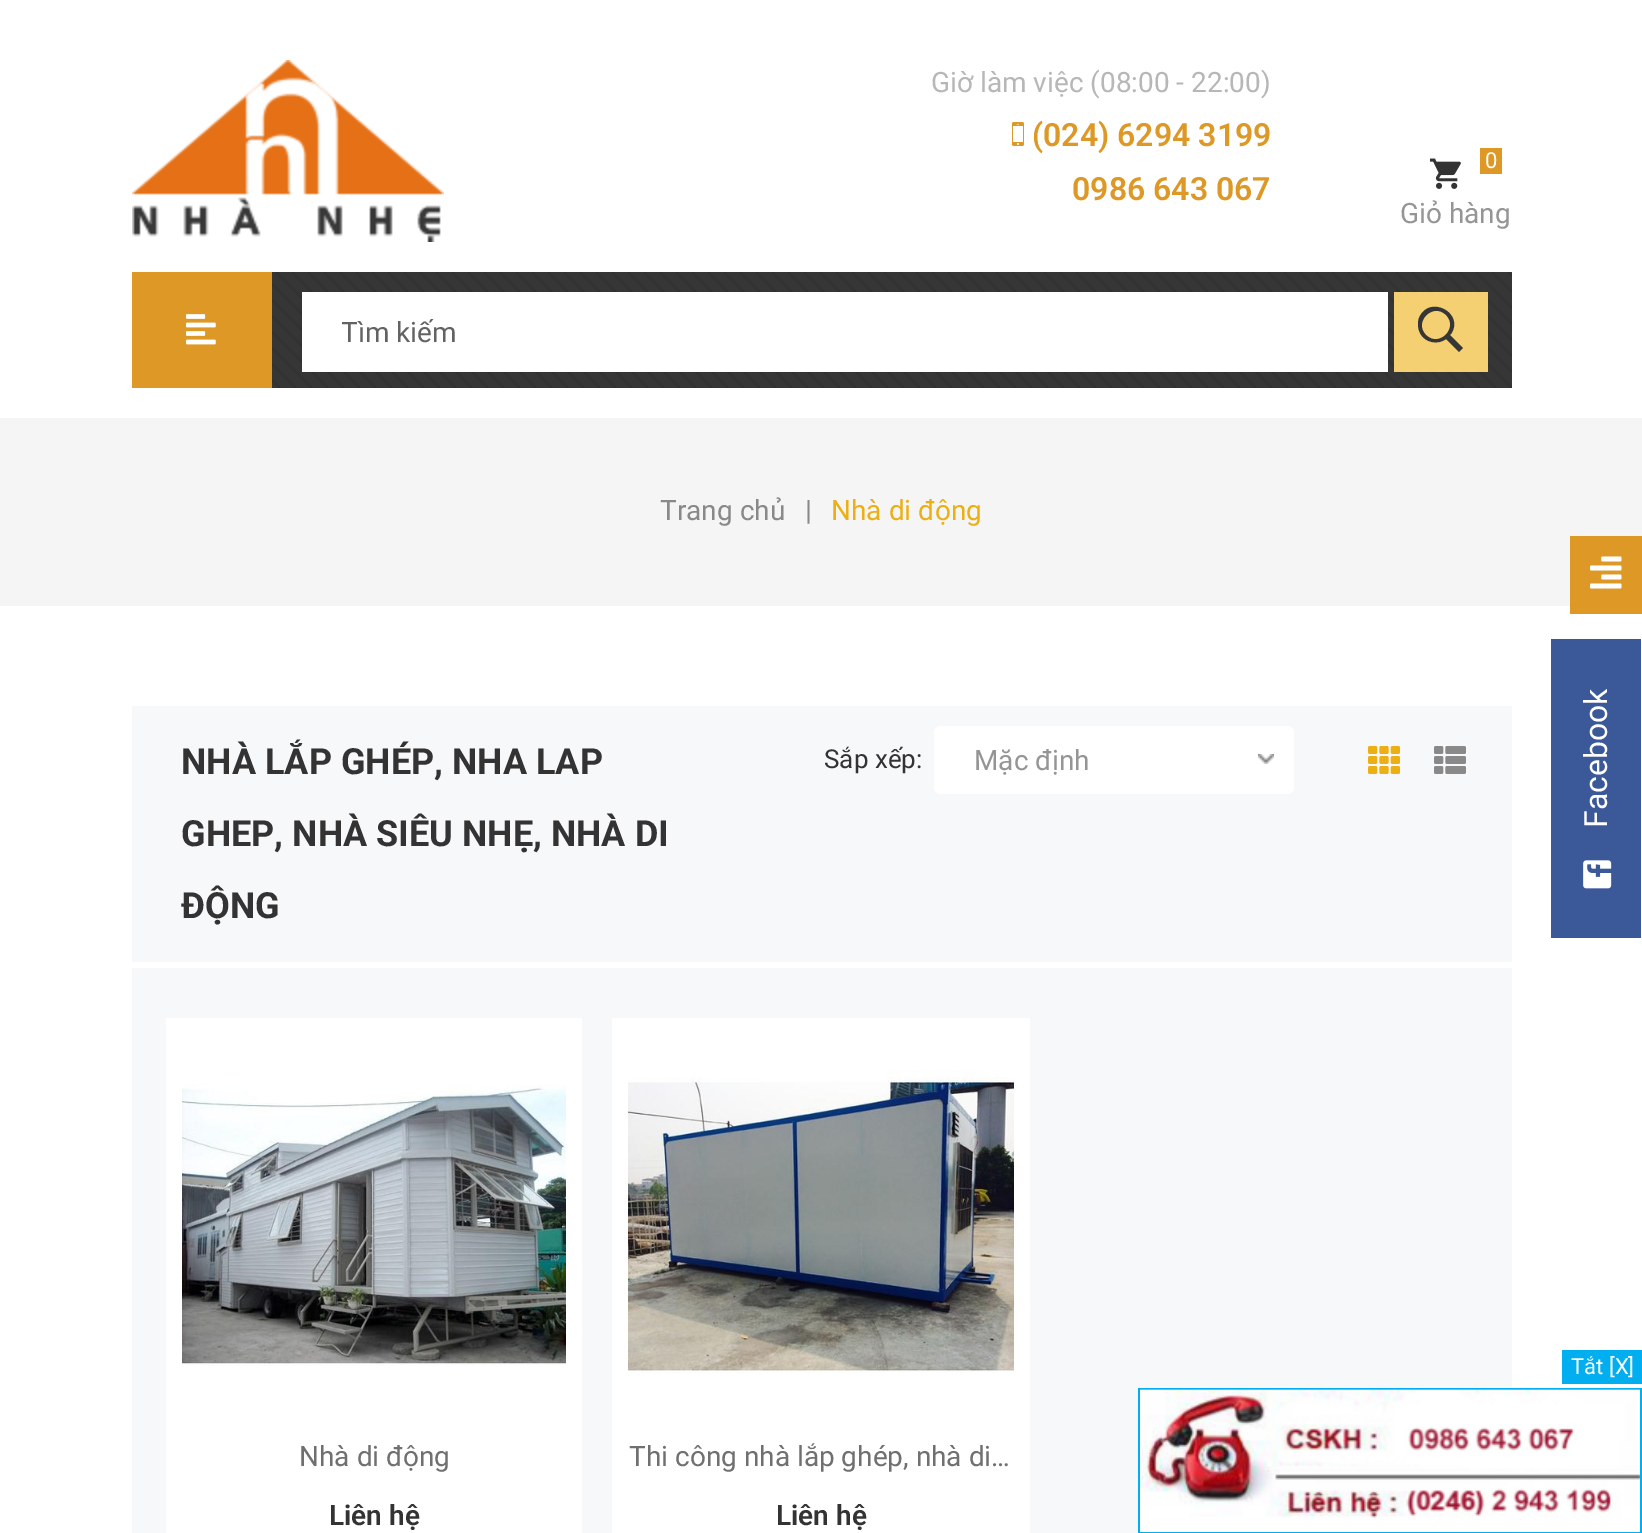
%!PS-Adobe-3.0
%%BoundingBox: 0 0 1642 1533
%%LanguageLevel: 3
%%Pages: 1
%%EndComments
%%BeginProlog
/m { moveto } bind def
/l { lineto } bind def
/c { curveto } bind def
/h { closepath } bind def
/f { fill } bind def
/q { gsave } bind def
/Q { grestore } bind def
/w { setlinewidth } bind def
/fn { [ exch dup neg 0 0 3 -1 roll 0 0 ] selectfont } def
/tx { moveto show } def
/bx { rectfill } def
/rr { 5 dict begin { /r /h /w /y /x } { exch def } forall
  x r add y moveto x w add y 2 copy h add r arct x w add y h add x 1 index r arct
  x y h add x y r arct x y 2 copy exch w add exch r arct closepath end } def
/im { 5 dict begin { /h /w /y /x /name } { exch def } forall
  gsave x y translate w h scale
  w h 8 [w 0 0 h 0 0] name (r) file false 3 colorimage grestore end } def
%%EndProlog
%%BeginSetup
<< /PageSize [1642 1533] >> setpagedevice
%%EndSetup
%%Page: 1 1
0 1533 translate 1 -1 scale
4 setmiterlimit
1 setgray
0 0 1642 1533 bx
(image0.raw) 132 60 312 182 im
/Roboto-Regular 28 fn
0.718 setgray
(Giờ làm việc \(08:00 - 22:00\)) 931 92 tx
(image1.raw) 1012 122 12 24 im
/Roboto-SemiBold 32 fn
0.867 0.596 0.145 setrgbcolor
(\(024\) 6294 3199) 1032 146 tx
(0986 643 067) 1072 200 tx
132 272 140 116 bx
(image2.raw) 186 314 30 31 im
(image3.raw) 272 272 1240 116 im
(image4.raw) 1430 158 31 31 im
1480 148 22 26 bx
/Roboto-Regular 22 fn
1 setgray
(0) 1485 168 tx
/Roboto-Regular 28 fn
0.584 setgray
(Giỏ hàng) 1400 223 tx
1 setgray
302 292 1086 80 bx
q
342 316 958 32 rectclip
0.388 setgray
(Tìm kiếm) 341 342 tx
Q
0.957 0.816 0.447 setrgbcolor
1394 292 94 80 bx
0.212 setgray
1451 334 m 1450 335 l 1463 348 l 1459 352 l 1446 339 l 1438 345 1425 343 1420 333 c 1418 329 1417 323 1419 318 c 1429 294 1465 313 1451 334 c h 1446 315 m 1433 302 1413 322 1426 335 c 1439 348 1459 328 1446 315 c h f
0.961 setgray
0 418 1642 188 bx
0.537 setgray
(Trang chủ) 660 520 tx
(|) 805 520 tx
0.925 0.69 0.078 setrgbcolor
(Nhà di động) 831 520 tx
0.867 0.596 0.145 setrgbcolor
1570 536 72 78 bx
(image5.raw) 1590 556 32 33 im
0.969 0.973 0.98 setrgbcolor
132 706 1380 256 bx
/Roboto-Bold 36 fn
0.2 setgray
(NHÀ LẮP GHÉP, NHA LAP) 181 774 tx
(GHEP, NHÀ SIÊU NHẸ, NHÀ DI) 181 846 tx
(ĐỘNG) 181 918 tx
/Roboto-Regular 26 fn
(Sắp xếp:) 824 768 tx
1 setgray
934 726 360 68 6 rr f
(image6.raw) 1258 754 16 10 im
/Roboto-Regular 28 fn
0.584 setgray
(Mặc định) 974 770 tx
(image7.raw) 1368 746 32 28 im
(image8.raw) 1434 746 32 28 im
0.969 0.973 0.98 setrgbcolor
132 968 1380 565 bx
1 setgray
166 1018 416 515 bx
(image9.raw) 182 1084 384 282 im
0.439 setgray
(Nhà di động) 299 1466 tx
/Roboto-SemiBold 28 fn
0.2 setgray
(Liên hệ) 329 1525 tx
1 setgray
612 1018 418 515 bx
(image10.raw) 628 1070 386 303 im
/Roboto-Regular 28 fn
0.439 setgray
(Thi công nhà lắp ghép, nhà di…) 629 1466 tx
/Roboto-SemiBold 28 fn
0.2 setgray
(Liên hệ) 776 1525 tx
0.231 0.349 0.6 setrgbcolor
1551 639 90 299 bx
/Roboto-Regular 32 fn
1 setgray
q 1607 828 translate -90 rotate 0 0 m (Facebook) show Q
(image11.raw) 1583 860 29 29 im
0.004 0.682 0.941 setrgbcolor
1562 1350 80 34 bx
/Roboto-Regular 22 fn
1 setgray
(Tắt [X]) 1571 1374 tx
0.004 0.682 0.941 setrgbcolor
2 w
1139 1389 502 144 rectstroke
(image12.raw) 1140 1389 500 143 im
showpage
%%EOF
